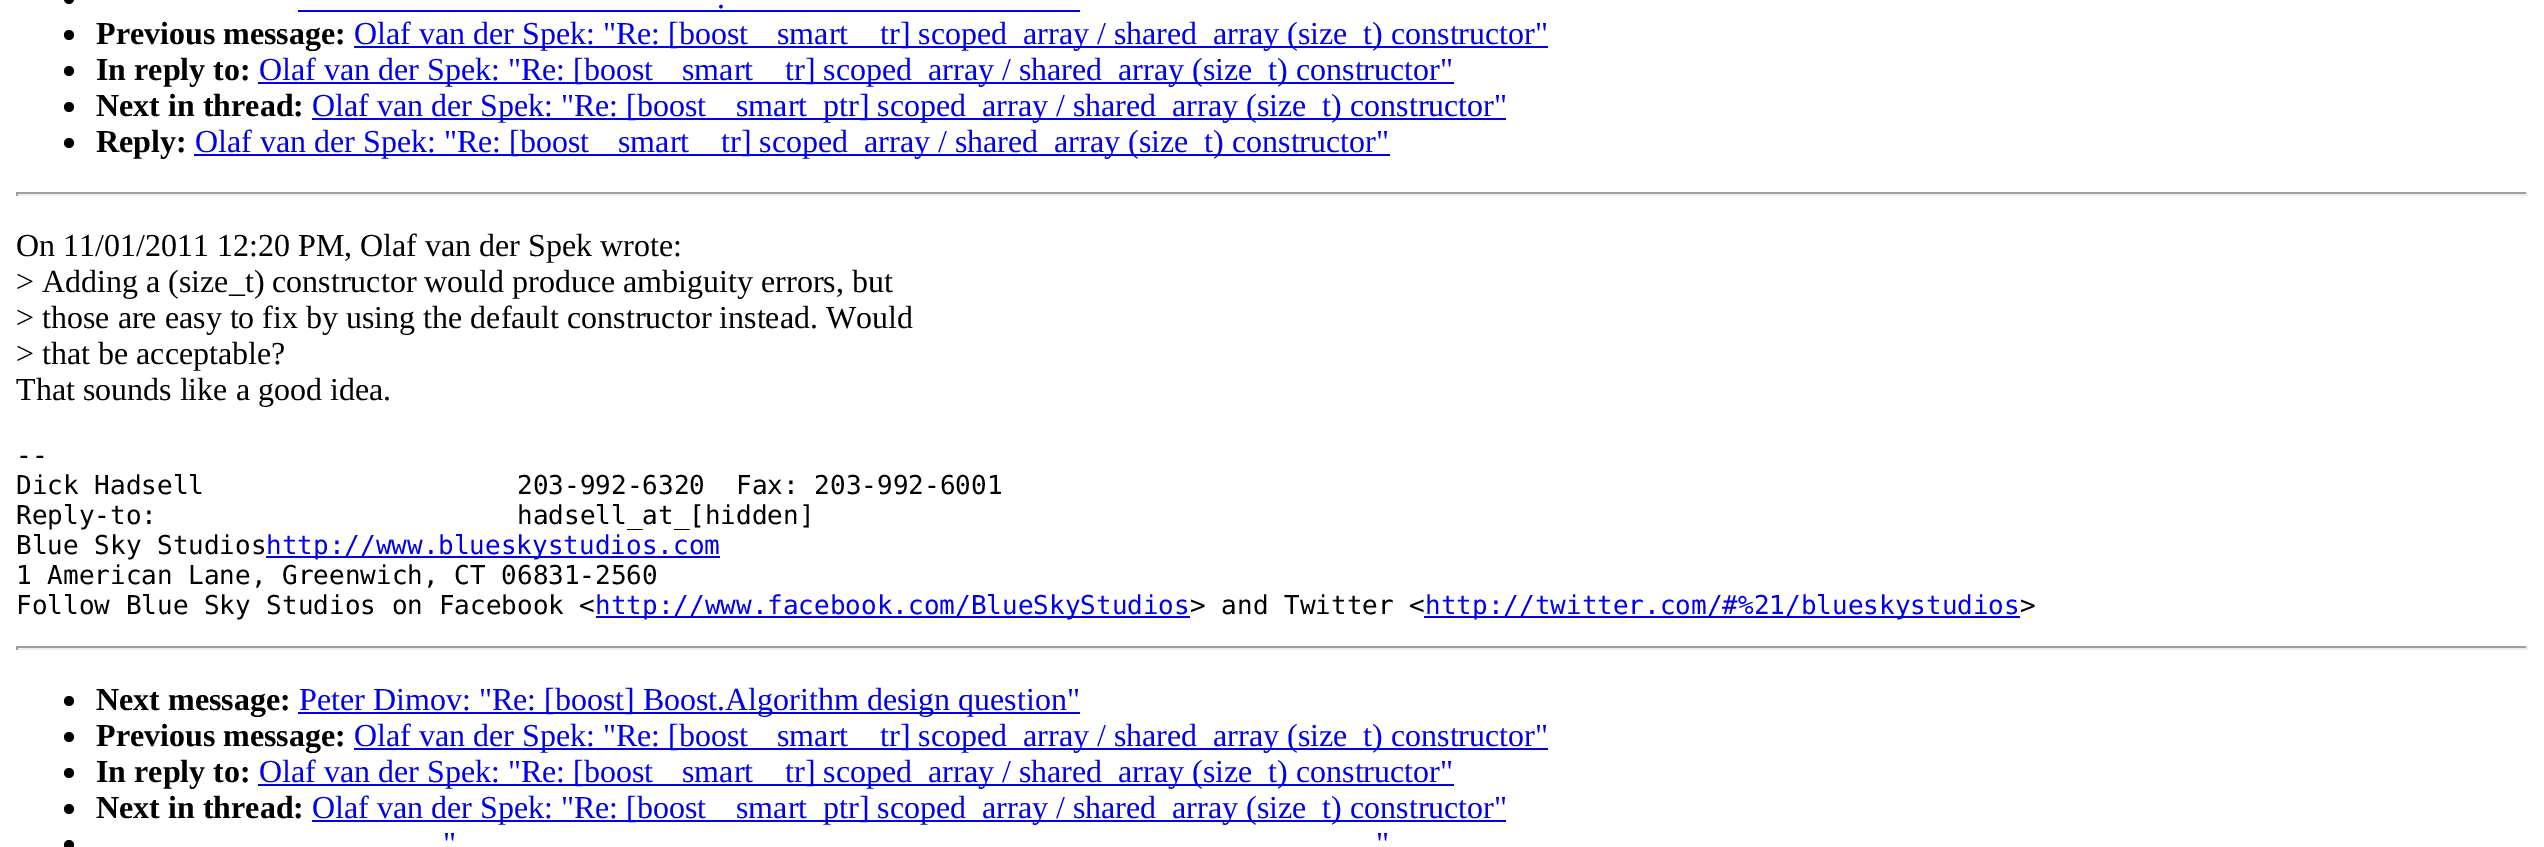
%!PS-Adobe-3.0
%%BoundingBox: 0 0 2544 847
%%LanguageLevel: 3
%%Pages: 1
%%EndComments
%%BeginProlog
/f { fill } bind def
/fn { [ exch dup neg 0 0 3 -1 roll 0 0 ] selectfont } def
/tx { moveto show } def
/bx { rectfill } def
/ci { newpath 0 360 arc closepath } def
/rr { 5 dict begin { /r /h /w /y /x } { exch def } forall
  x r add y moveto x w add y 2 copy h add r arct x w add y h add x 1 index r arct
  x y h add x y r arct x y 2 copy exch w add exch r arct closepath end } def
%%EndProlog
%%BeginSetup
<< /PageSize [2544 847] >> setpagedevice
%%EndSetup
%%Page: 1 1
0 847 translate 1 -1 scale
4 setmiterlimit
1 setgray
0 0 2544 847 bx
0 setgray
64 -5 10 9 5 rr f
/LiberationSerif-Regular 32 fn
0 0 0.933 setrgbcolor
(.) 717 8 tx
298 10 782 2 bx
0 setgray
69 35 5 ci f
/LiberationSerif-Bold 32 fn
(Previous message:) 96 44 tx
0 0 0.933 setrgbcolor
354 46 1194 2 bx
/LiberationSerif-Regular 32 fn
(Olaf van der Spek: "Re: [boost) 354 44 tx
(smart) 777 44 tx
(tr] scoped_array / shared_array \(size_t\) constructor") 880 44 tx
0 setgray
69 71 5 ci f
/LiberationSerif-Bold 32 fn
(In reply to:) 96 80 tx
0 0 0.933 setrgbcolor
258 82 1196 2 bx
/LiberationSerif-Regular 32 fn
(Olaf van der Spek: "Re: [boost) 259 80 tx
(smart) 682 80 tx
(tr] scoped_array / shared_array \(size_t\) constructor") 785 80 tx
0 setgray
69 107 5 ci f
/LiberationSerif-Bold 32 fn
(Next in thread:) 96 116 tx
0 0 0.933 setrgbcolor
312 118 1194 2 bx
/LiberationSerif-Regular 32 fn
(Olaf van der Spek: "Re: [boost) 312 116 tx
(smart_ptr] scoped_array / shared_array \(size_t\) constructor") 736 116 tx
0 setgray
69 143 5 ci f
/LiberationSerif-Bold 32 fn
(Reply:) 96 152 tx
0 0 0.933 setrgbcolor
194 154 1196 2 bx
/LiberationSerif-Regular 32 fn
(Olaf van der Spek: "Re: [boost) 195 152 tx
(smart) 618 152 tx
(tr] scoped_array / shared_array \(size_t\) constructor") 721 152 tx
0.624 setgray
16 192 2512 2 bx
0.933 setgray
2526 192 2 4 bx
16 194 2512 2 bx
0.624 setgray
16 192 2 4 bx
0 setgray
(On 11/01/2011 12:20 PM, Olaf van der Spek wrote:) 16 256 tx
(> Adding a \(size_t\) constructor would produce ambiguity errors, but) 16 292 tx
(> those are easy to fix by using the default constructor instead. Would) 16 328 tx
(> that be acceptable?) 16 364 tx
(That sounds like a good idea.) 16 400 tx
/DejaVuSansMono-Regular 26 fn
(--) 16 464 tx
(Dick Hadsell) 16 494 tx
(203-992-6320  Fax: 203-992-6001) 517 494 tx
(Reply-to:) 16 524 tx
(hadsell_at_[hidden]) 517 524 tx
(Blue Sky Studios) 16 554 tx
0 0 0.933 setrgbcolor
266 556 454 2 bx
(http://www.blueskystudios.com) 266 554 tx
0 setgray
(1 American Lane, Greenwich, CT 06831-2560) 16 584 tx
(Follow Blue Sky Studios on Facebook <) 16 614 tx
0 0 0.933 setrgbcolor
596 616 594 2 bx
(http://www.facebook.com/BlueSkyStudios) 595 614 tx
0 setgray
(> and Twitter <) 1190 614 tx
0 0 0.933 setrgbcolor
1424 616 596 2 bx
(http://twitter.com/#%21/blueskystudios) 1425 614 tx
0 setgray
(>) 2020 614 tx
0.624 setgray
16 646 2512 2 bx
0.933 setgray
2526 646 2 4 bx
16 648 2512 2 bx
0.624 setgray
16 646 2 4 bx
0 setgray
69 701 5 ci f
/LiberationSerif-Bold 32 fn
(Next message:) 96 710 tx
0 0 0.933 setrgbcolor
298 712 782 2 bx
/LiberationSerif-Regular 32 fn
(Peter Dimov: "Re: [boost] Boost.Algorithm design question") 299 710 tx
0 setgray
69 737 5 ci f
/LiberationSerif-Bold 32 fn
(Previous message:) 96 746 tx
0 0 0.933 setrgbcolor
354 748 1194 2 bx
/LiberationSerif-Regular 32 fn
(Olaf van der Spek: "Re: [boost) 354 746 tx
(smart) 777 746 tx
(tr] scoped_array / shared_array \(size_t\) constructor") 880 746 tx
0 setgray
69 773 5 ci f
/LiberationSerif-Bold 32 fn
(In reply to:) 96 782 tx
0 0 0.933 setrgbcolor
258 784 1196 2 bx
/LiberationSerif-Regular 32 fn
(Olaf van der Spek: "Re: [boost) 259 782 tx
(smart) 682 782 tx
(tr] scoped_array / shared_array \(size_t\) constructor") 785 782 tx
0 setgray
69 809 5 ci f
/LiberationSerif-Bold 32 fn
(Next in thread:) 96 818 tx
0 0 0.933 setrgbcolor
312 820 1194 2 bx
/LiberationSerif-Regular 32 fn
(Olaf van der Spek: "Re: [boost) 312 818 tx
(smart_ptr] scoped_array / shared_array \(size_t\) constructor") 736 818 tx
(") 443 854 tx
(") 1376 854 tx
0 setgray
69 845 5 ci f
showpage
%%EOF
